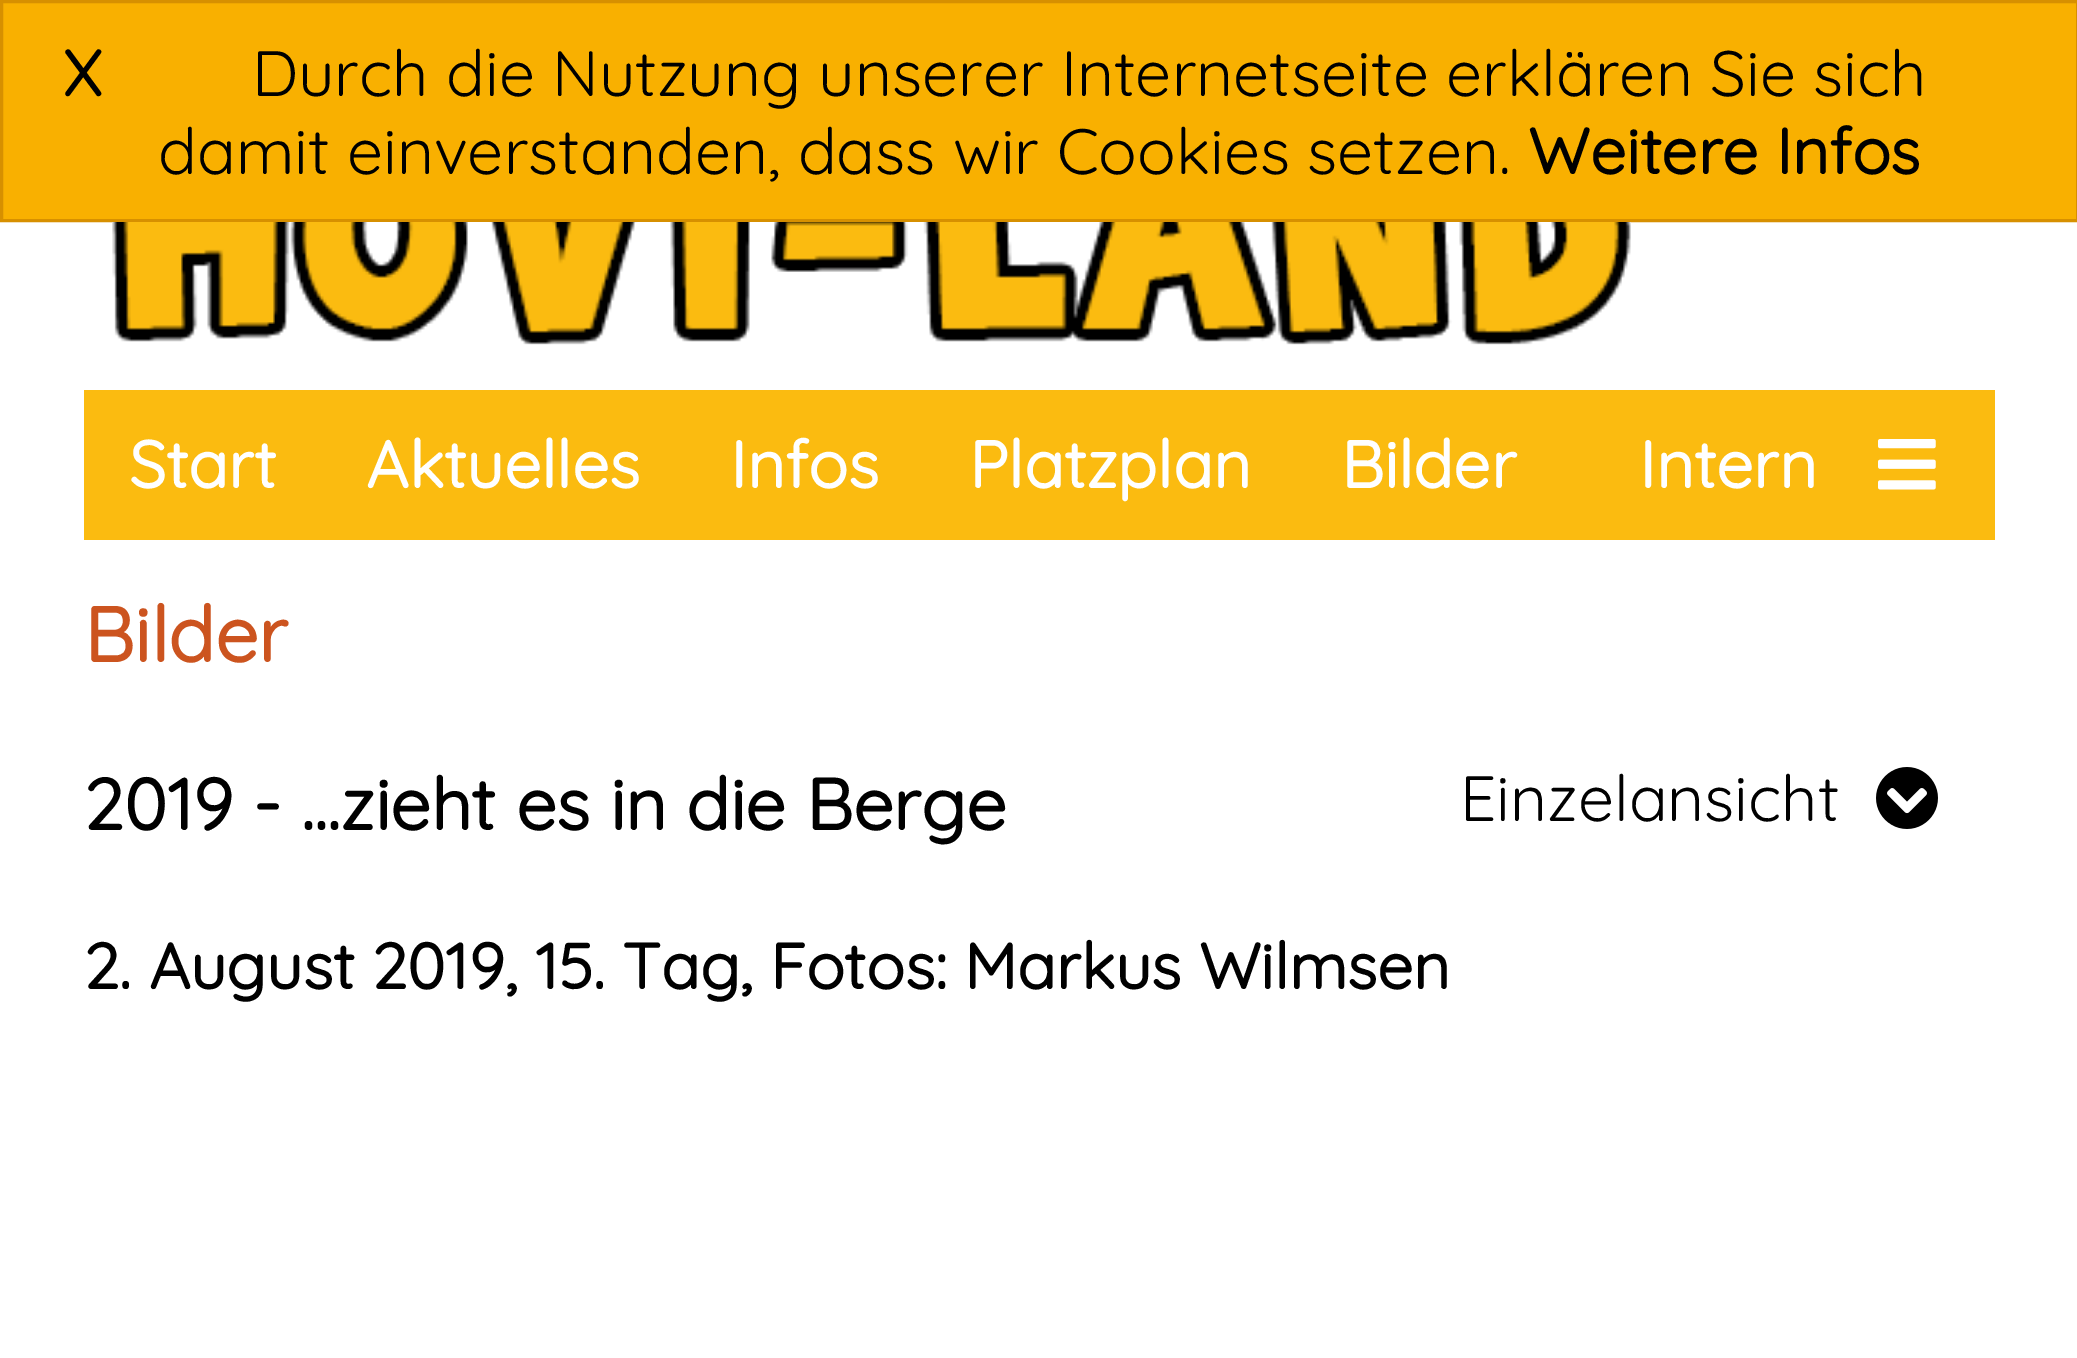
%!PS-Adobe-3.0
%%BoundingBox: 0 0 2077 1358
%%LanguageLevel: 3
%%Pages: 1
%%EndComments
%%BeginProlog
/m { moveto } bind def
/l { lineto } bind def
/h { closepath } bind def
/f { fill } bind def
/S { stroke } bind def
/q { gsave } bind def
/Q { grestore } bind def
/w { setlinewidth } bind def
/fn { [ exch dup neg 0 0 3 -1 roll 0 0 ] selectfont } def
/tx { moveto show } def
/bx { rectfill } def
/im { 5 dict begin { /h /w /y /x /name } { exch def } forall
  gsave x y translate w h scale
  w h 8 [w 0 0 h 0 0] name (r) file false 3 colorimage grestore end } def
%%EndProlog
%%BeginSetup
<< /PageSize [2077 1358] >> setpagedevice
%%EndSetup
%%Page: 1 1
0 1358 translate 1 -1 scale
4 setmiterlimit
1 setgray
0 0 2077 1358 bx
0.976 0.69 0 setrgbcolor
1.5 1.5 m 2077.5 1.5 l 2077.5 220.5 l 1.5 220.5 l h q f Q
0.843 0.565 0 setrgbcolor
3 w
S
/Quicksand-Bold 64 fn
0 setgray
(X) 63 96 tx
/Quicksand-Regular 64 fn
(Durch die Nutzung unserer Internetseite erklären Sie sich) 252 96 tx
(damit einverstanden, dass wir Cookies setzen.) 158 174 tx
/Quicksand-Bold 64 fn
(Weitere Infos) 1528 174 tx
(image0.raw) 112 222 1519 123 im
0.984 0.733 0.063 setrgbcolor
84 390 1911 150 bx
/Quicksand-Bold 66 fn
1 setgray
(Start) 129 488 tx
(Aktuelles) 366 488 tx
(Infos) 730 488 tx
(Platzplan) 969 488 tx
(Bilder) 1341 488 tx
(Intern) 1639 488 tx
(image1.raw) 1878 439 58 51 im
/Quicksand-Bold 77 fn
0.8 0.329 0.122 setrgbcolor
(Bilder) 84 662 tx
/Quicksand-Bold 72 fn
0 setgray
(2019 - ...zieht es in die Berge) 84 830 tx
/Quicksand-Regular 64 fn
(Einzelansicht) 1460 821 tx
(image2.raw) 1876 767 62 62 im
/Quicksand-Bold 64 fn
(2. August 2019, 15. Tag, Fotos: Markus Wilmsen) 84 989 tx
showpage
%%EOF
